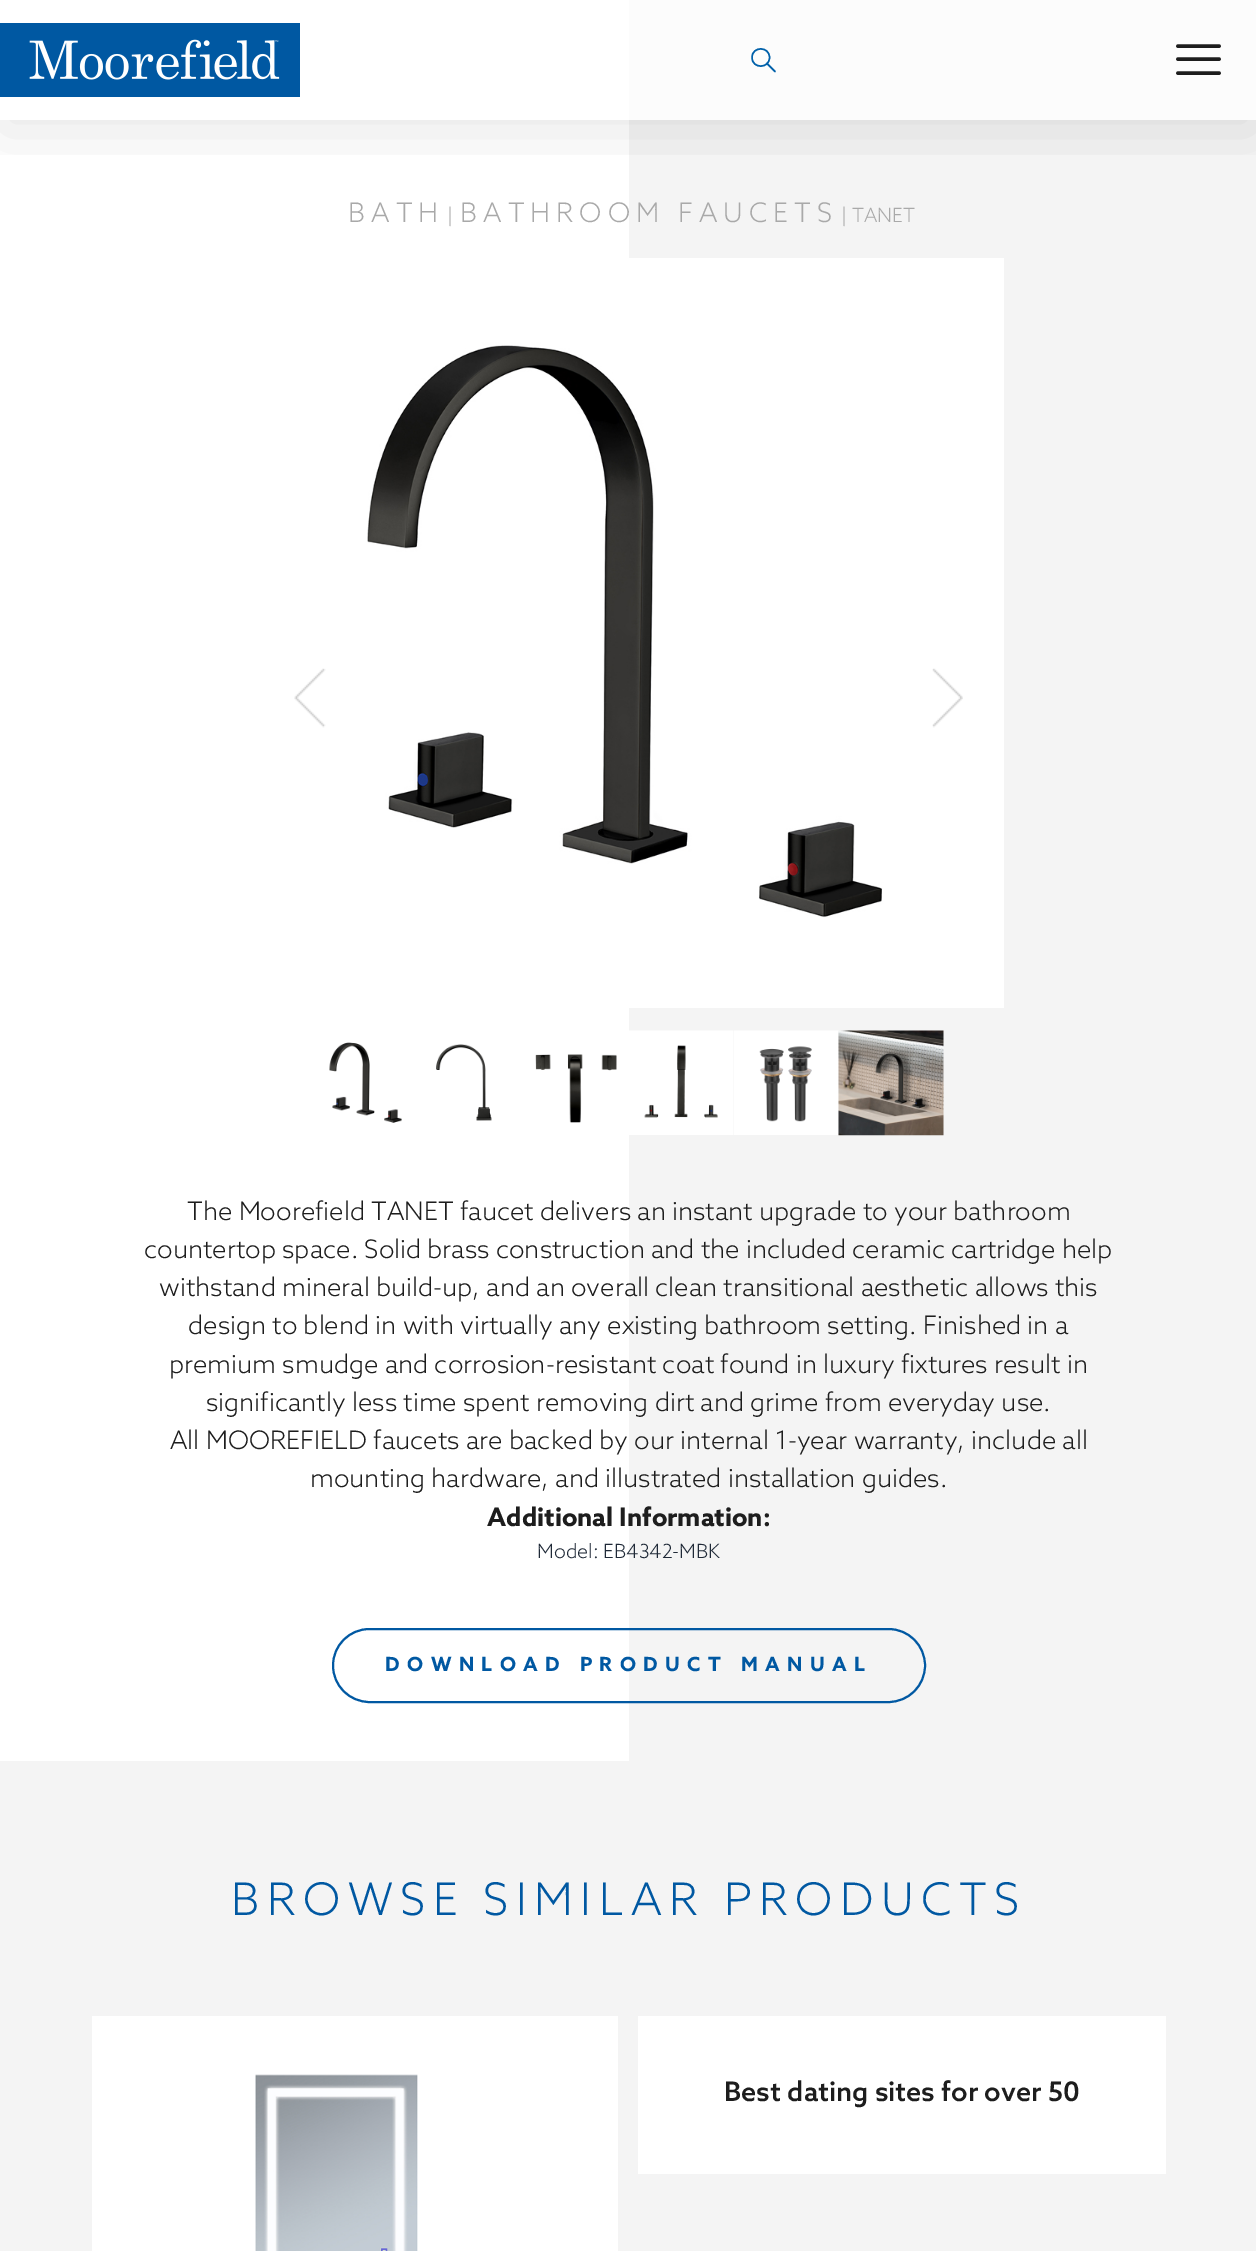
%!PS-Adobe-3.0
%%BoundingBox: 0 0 1256 2251
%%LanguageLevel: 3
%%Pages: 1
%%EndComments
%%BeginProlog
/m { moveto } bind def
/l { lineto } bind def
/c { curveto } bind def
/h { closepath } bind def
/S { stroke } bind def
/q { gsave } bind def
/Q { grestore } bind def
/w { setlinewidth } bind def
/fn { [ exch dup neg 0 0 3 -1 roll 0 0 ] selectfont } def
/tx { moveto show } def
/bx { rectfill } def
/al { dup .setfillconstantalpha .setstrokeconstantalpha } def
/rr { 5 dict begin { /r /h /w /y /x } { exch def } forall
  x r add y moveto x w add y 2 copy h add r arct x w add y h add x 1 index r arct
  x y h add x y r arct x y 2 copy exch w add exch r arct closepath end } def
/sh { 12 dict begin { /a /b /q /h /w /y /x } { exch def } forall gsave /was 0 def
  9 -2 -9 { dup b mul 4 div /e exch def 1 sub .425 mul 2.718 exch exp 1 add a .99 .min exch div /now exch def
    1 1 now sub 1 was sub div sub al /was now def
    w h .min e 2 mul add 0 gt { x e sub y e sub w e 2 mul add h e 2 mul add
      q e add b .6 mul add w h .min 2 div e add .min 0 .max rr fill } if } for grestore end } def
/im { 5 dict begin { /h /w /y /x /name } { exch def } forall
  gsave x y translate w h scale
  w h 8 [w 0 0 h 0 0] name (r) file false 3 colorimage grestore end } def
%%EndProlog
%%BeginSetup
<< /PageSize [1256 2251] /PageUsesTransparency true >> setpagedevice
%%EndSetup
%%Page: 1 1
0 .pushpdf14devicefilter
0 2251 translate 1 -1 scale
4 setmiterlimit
1 setgray
0 0 1256 2251 bx
0.957 setgray
629 120 627 1641 bx
0.988 setgray
629 0 627 120 bx
q
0 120 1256 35 rectclip
0 setgray
0 12 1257 120 0 30 0.09 sh
Q
(image0.raw) 0 23 300 74 im
0.004 0.38 0.667 setrgbcolor
1.5 w
769.5 57.5 m 769.5 69 752 69 752 57.5 c 752 46 769.5 46 769.5 57.5 c h S
1 setlinecap
767 63.5 m 775 71.5 l S
0.114 setgray
3.6 w
1178 59 m 1219 59 l 1178 46 m 1219 46 l 1178 73 m 1219 73 l S
/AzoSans-Light 27 fn
0.663 setgray
348 222 m 6 0 (BATH) ashow
/AzoSans-Light 19.5 fn
(|) 447 222 tx
/AzoSans-Light 27 fn
460 222 m 6 0 (BATHROOM FAUCETS) ashow
/AzoSans-Light 19.5 fn
(| TANET) 841 222 tx
(image1.raw) 294 668 32 60 im
(image2.raw) 367 258 637 750 im
(image3.raw) 932 668 31 60 im
(image4.raw) 329 1042 73 81 im
(image5.raw) 436 1044 56 77 im
(image6.raw) 535 1054 82 69 im
(image7.raw) 629 1030 105 105 im
(image8.raw) 734 1030 105 105 im
(image9.raw) 838 1030 106 106 im
/AzoSans-Light 25.5 fn
0.114 setgray
(The Moorefield TANET faucet delivers an instant upgrade to your bathroom) 187 1220 tx
(countertop space. Solid brass construction and the included ceramic cartridge help) 144 1258 tx
(withstand mineral build-up, and an overall clean transitional aesthetic allows this) 159 1296 tx
(design to blend in with virtually any existing bathroom setting. Finished in a) 188 1334 tx
(premium smudge and corrosion-resistant coat found in luxury fixtures result in) 169 1373 tx
(significantly less time spent removing dirt and grime from everyday use.) 206 1411 tx
(All MOOREFIELD faucets are backed by our internal 1-year warranty, include all) 170 1449 tx
(mounting hardware, and illustrated installation guides.) 310 1487 tx
/AzoSans-Bold 25.5 fn
(Additional Information:) 487 1526 tx
/AzoSans-Light 19.5 fn
0.122 0.161 0.216 setrgbcolor
(Model: EB4342-MBK) 537 1558 tx
0 0.345 0.635 setrgbcolor
2 w
0 setlinecap
333 1629 592 73 36.5 rr S
/AzoSans-Bold 19.5 fn
385 1671 m 7.5 0 (DOWNLOAD PRODUCT MANUAL) ashow
0.957 setgray
0 1761 1256 490 bx
/AzoSans-Light 45 fn
0 0.345 0.635 setrgbcolor
231 1915 m 7.5 0 (BROWSE SIMILAR PRODUCTS) ashow
1 setgray
92 2016 526 235 bx
(image10.raw) 255 2074 163 177 im
638 2016 528 158 bx
/AzoSans-Medium 27 fn
0.114 setgray
(Best dating sites for over 50) 724 2101 tx
.poppdf14devicefilter showpage
%%EOF
